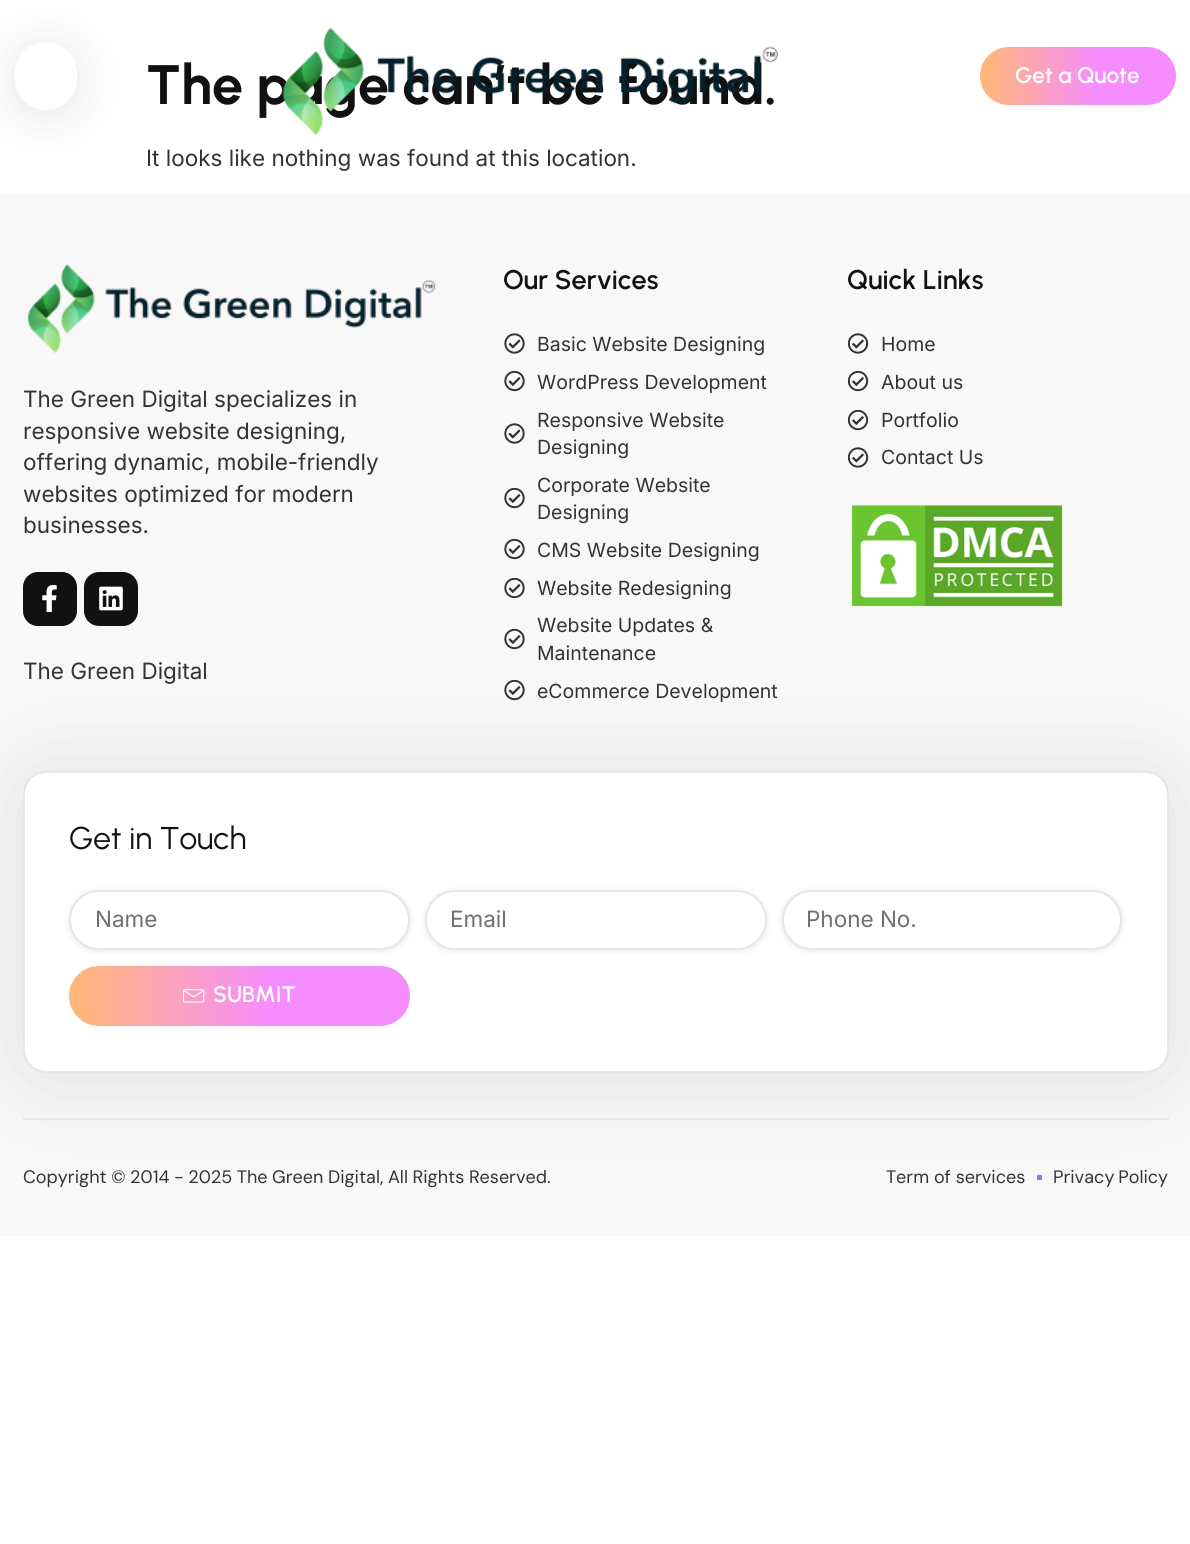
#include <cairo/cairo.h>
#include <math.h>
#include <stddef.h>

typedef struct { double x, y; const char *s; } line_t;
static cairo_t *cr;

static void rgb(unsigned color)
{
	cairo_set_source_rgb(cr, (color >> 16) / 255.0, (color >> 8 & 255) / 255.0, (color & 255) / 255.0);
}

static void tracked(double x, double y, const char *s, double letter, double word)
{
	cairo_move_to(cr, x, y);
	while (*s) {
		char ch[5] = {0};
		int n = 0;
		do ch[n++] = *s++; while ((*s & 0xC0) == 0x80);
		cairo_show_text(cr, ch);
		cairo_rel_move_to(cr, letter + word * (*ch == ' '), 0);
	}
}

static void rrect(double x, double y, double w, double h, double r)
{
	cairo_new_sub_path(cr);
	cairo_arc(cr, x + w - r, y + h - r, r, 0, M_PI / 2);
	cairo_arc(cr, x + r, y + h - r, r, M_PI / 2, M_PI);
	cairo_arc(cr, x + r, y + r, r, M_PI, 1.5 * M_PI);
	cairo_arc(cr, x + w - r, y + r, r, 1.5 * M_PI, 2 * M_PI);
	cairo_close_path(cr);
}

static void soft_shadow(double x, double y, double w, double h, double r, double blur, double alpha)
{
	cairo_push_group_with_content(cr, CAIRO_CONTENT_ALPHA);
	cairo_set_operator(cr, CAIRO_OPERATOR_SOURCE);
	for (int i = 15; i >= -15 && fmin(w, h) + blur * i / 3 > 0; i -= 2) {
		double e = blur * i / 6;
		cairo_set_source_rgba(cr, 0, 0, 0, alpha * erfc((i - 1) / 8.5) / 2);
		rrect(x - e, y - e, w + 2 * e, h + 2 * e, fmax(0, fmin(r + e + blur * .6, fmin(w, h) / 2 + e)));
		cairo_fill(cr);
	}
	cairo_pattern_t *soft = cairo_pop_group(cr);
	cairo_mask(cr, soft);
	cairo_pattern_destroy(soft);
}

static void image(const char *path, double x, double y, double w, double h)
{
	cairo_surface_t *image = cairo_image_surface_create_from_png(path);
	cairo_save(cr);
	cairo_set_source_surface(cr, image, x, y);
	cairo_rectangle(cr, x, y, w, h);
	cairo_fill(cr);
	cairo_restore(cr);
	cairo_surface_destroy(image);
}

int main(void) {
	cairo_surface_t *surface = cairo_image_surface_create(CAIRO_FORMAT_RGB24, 1190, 1544);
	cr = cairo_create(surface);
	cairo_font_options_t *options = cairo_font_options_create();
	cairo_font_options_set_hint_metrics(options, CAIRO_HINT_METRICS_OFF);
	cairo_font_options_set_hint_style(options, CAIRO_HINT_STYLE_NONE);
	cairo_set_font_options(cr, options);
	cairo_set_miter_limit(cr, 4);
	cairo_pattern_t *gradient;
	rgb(0xffffff);
	cairo_paint(cr);
	rgb(0x000000);
	soft_shadow(15, 47, 62, 67, 31, 22.5, 0.1);
	rgb(0xffffff);
	rrect(15, 42, 62, 68, 31);
	cairo_fill(cr);
	gradient = cairo_pattern_create_linear(980, 76, 1176, 76);
	cairo_pattern_add_color_stop_rgba(gradient, 0, 1, 0.718, 0.455, 1);
	cairo_pattern_add_color_stop_rgba(gradient, 0.6, 0.965, 0.553, 1, 1);
	cairo_set_source(cr, gradient);
	cairo_pattern_destroy(gradient);
	rrect(980, 47, 196, 58, 29);
	cairo_fill(cr);
	rgb(0xf8f8f8);
	cairo_rectangle(cr, 0, 195, 1190, 1041);
	cairo_fill(cr);
	image("img/2.png", 27, 263, 409, 90);
	rgb(0x111111);
	rrect(23, 572, 54, 54, 15);
	cairo_fill(cr);
	image("img/3.png", 42, 585, 15, 27);
	rrect(84, 572, 54, 54, 15);
	cairo_fill(cr);
	image("img/4.png", 99, 586, 24, 25);
	image("img/5.png", 504, 333, 21, 21);
	image("img/6.png", 504, 371, 21, 21);
	image("img/5.png", 504, 423, 21, 21);
	image("img/6.png", 504, 488, 21, 21);
	image("img/6.png", 504, 539, 21, 21);
	image("img/6.png", 504, 578, 21, 21);
	image("img/6.png", 504, 629, 21, 21);
	image("img/6.png", 504, 680, 21, 21);
	image("img/7.png", 848, 333, 21, 21);
	image("img/8.png", 848, 371, 21, 21);
	image("img/8.png", 848, 410, 21, 21);
	image("img/7.png", 848, 447, 21, 21);
	image("img/9.png", 851, 505, 212, 102);
	rgb(0x000000);
	soft_shadow(23, 776, 1146, 301, 23, 45, 0.1);
	rgb(0xffffff);
	rrect(24, 772, 1144, 300, 22);
	cairo_fill_preserve(cr);
	rgb(0xe6e6e6);
	cairo_stroke(cr);
	rrect(24, 772, 1144, 300, 22);
	cairo_set_source_rgba(cr, 0.902, 0.902, 0.902, 0.5);
	cairo_stroke(cr);
	rgb(0x000000);
	soft_shadow(69, 891, 341, 60, 30, 3, 0.1);
	rgb(0xffffff);
	rrect(70, 891, 339, 58, 29);
	cairo_fill_preserve(cr);
	rgb(0xe6e6e6);
	cairo_stroke(cr);
	rgb(0x000000);
	soft_shadow(425, 891, 342, 60, 30, 3, 0.1);
	rgb(0xffffff);
	rrect(426, 891, 340, 58, 29);
	cairo_fill_preserve(cr);
	rgb(0xe6e6e6);
	cairo_stroke(cr);
	rgb(0x000000);
	soft_shadow(782, 891, 340, 60, 30, 3, 0.1);
	rgb(0xffffff);
	rrect(783, 891, 338, 58, 29);
	cairo_fill_preserve(cr);
	rgb(0xe6e6e6);
	cairo_stroke(cr);
	gradient = cairo_pattern_create_linear(69, 996, 410, 996);
	cairo_pattern_add_color_stop_rgba(gradient, 0, 1, 0.718, 0.455, 1);
	cairo_pattern_add_color_stop_rgba(gradient, 0.6, 0.965, 0.553, 1, 1);
	cairo_set_source(cr, gradient);
	cairo_pattern_destroy(gradient);
	rrect(69, 966, 341, 60, 30);
	cairo_fill(cr);
	image("img/10.png", 183, 989, 22, 14);
	rgb(0xe6e6e6);
	cairo_rectangle(cr, 23, 1118, 1146, 2);
	cairo_fill(cr);
	rgb(0x7087ff);
	cairo_rectangle(cr, 1037, 1175, 5, 5);
	cairo_fill(cr);
	cairo_select_font_face(cr, "Urbanist", CAIRO_FONT_SLANT_NORMAL, CAIRO_FONT_WEIGHT_BOLD);
	cairo_set_font_size(cr, 55.5);
	rgb(0x111111);
	cairo_move_to(cr, 146, 104);
	cairo_show_text(cr, "The page can’t be found.");
	cairo_select_font_face(cr, "Inter", CAIRO_FONT_SLANT_NORMAL, CAIRO_FONT_WEIGHT_NORMAL);
	cairo_set_font_size(cr, 22.5);
	rgb(0x333335);
	cairo_move_to(cr, 146, 166);
	cairo_show_text(cr, "It looks like nothing was found at this location.");
	image("img/1.png", 282, 27, 496, 109);
	cairo_select_font_face(cr, "Urbanist SemiBold", CAIRO_FONT_SLANT_NORMAL, CAIRO_FONT_WEIGHT_NORMAL);
	rgb(0xffffff);
	cairo_move_to(cr, 1015, 83);
	cairo_show_text(cr, "Get a Quote");
	cairo_select_font_face(cr, "Inter", CAIRO_FONT_SLANT_NORMAL, CAIRO_FONT_WEIGHT_NORMAL);
	rgb(0x333335);
	{
		static const line_t items[] = {
			{23, 407, "The Green Digital specializes in"},
			{23, 439, "responsive website designing,"},
			{23, 470, "offering dynamic, mobile-friendly"},
			{23, 502, "websites optimized for modern"},
			{23, 533, "businesses."},
			{23, 679, "The Green Digital"},
		};
		for (size_t i = 0; i < sizeof items / sizeof *items; i++) {
			cairo_move_to(cr, items[i].x, items[i].y);
			cairo_show_text(cr, items[i].s);
		}
	}
	cairo_select_font_face(cr, "Urbanist SemiBold", CAIRO_FONT_SLANT_NORMAL, CAIRO_FONT_WEIGHT_NORMAL);
	cairo_set_font_size(cr, 27);
	rgb(0x111111);
	cairo_move_to(cr, 503, 289);
	cairo_show_text(cr, "Our Services");
	cairo_select_font_face(cr, "Inter", CAIRO_FONT_SLANT_NORMAL, CAIRO_FONT_WEIGHT_NORMAL);
	cairo_set_font_size(cr, 19.5);
	rgb(0x333335);
	{
		static const line_t items[] = {
			{537, 351, "Basic Website Designing"},
			{537, 389, "WordPress Development"},
			{537, 427, "Responsive Website"},
			{537, 454, "Designing"},
			{537, 492, "Corporate Website"},
			{537, 519, "Designing"},
			{537, 557, "CMS Website Designing"},
			{537, 595, "Website Redesigning"},
			{537, 632, "Website Updates &"},
			{537, 660, "Maintenance"},
			{537, 698, "eCommerce Development"},
		};
		for (size_t i = 0; i < sizeof items / sizeof *items; i++) {
			cairo_move_to(cr, items[i].x, items[i].y);
			cairo_show_text(cr, items[i].s);
		}
	}
	cairo_select_font_face(cr, "Urbanist SemiBold", CAIRO_FONT_SLANT_NORMAL, CAIRO_FONT_WEIGHT_NORMAL);
	cairo_set_font_size(cr, 27);
	rgb(0x111111);
	cairo_move_to(cr, 847, 289);
	cairo_show_text(cr, "Quick Links");
	cairo_select_font_face(cr, "Inter", CAIRO_FONT_SLANT_NORMAL, CAIRO_FONT_WEIGHT_NORMAL);
	cairo_set_font_size(cr, 19.5);
	rgb(0x333335);
	{
		static const line_t items[] = {
			{881, 351, "Home"},
			{881, 389, "About us"},
			{881, 427, "Portfolio"},
			{881, 464, "Contact Us"},
		};
		for (size_t i = 0; i < sizeof items / sizeof *items; i++) {
			cairo_move_to(cr, items[i].x, items[i].y);
			cairo_show_text(cr, items[i].s);
		}
	}
	cairo_select_font_face(cr, "Urbanist", CAIRO_FONT_SLANT_NORMAL, CAIRO_FONT_WEIGHT_NORMAL);
	cairo_set_font_size(cr, 31.5);
	rgb(0x111111);
	cairo_move_to(cr, 69, 849);
	cairo_show_text(cr, "Get in Touch");
	cairo_select_font_face(cr, "Inter", CAIRO_FONT_SLANT_NORMAL, CAIRO_FONT_WEIGHT_NORMAL);
	cairo_set_font_size(cr, 22.5);
	rgb(0x707070);
	{
		static const line_t items[] = {
			{95, 927, "Name"},
			{450, 927, "Email"},
			{806, 927, "Phone No."},
		};
		for (size_t i = 0; i < sizeof items / sizeof *items; i++) {
			cairo_move_to(cr, items[i].x, items[i].y);
			cairo_show_text(cr, items[i].s);
		}
	}
	cairo_select_font_face(cr, "Urbanist SemiBold", CAIRO_FONT_SLANT_NORMAL, CAIRO_FONT_WEIGHT_NORMAL);
	rgb(0xffffff);
	cairo_move_to(cr, 213, 1002);
	cairo_show_text(cr, "SUBMIT");
	cairo_select_font_face(cr, "DM Sans", CAIRO_FONT_SLANT_NORMAL, CAIRO_FONT_WEIGHT_NORMAL);
	cairo_set_font_size(cr, 18);
	rgb(0x333335);
	tracked(23, 1183, "Copyright © 2014 - 2025 The Green Digital, All Rights Reserved.", 0, -0.25);
	cairo_move_to(cr, 886, 1183);
	cairo_show_text(cr, "Term of services");
	tracked(1053, 1183, "Privacy Policy", 0, -1);
	cairo_surface_write_to_png(surface, "page.png");
	cairo_font_options_destroy(options);
	cairo_destroy(cr);
	cairo_surface_destroy(surface);
	return 0;
}
